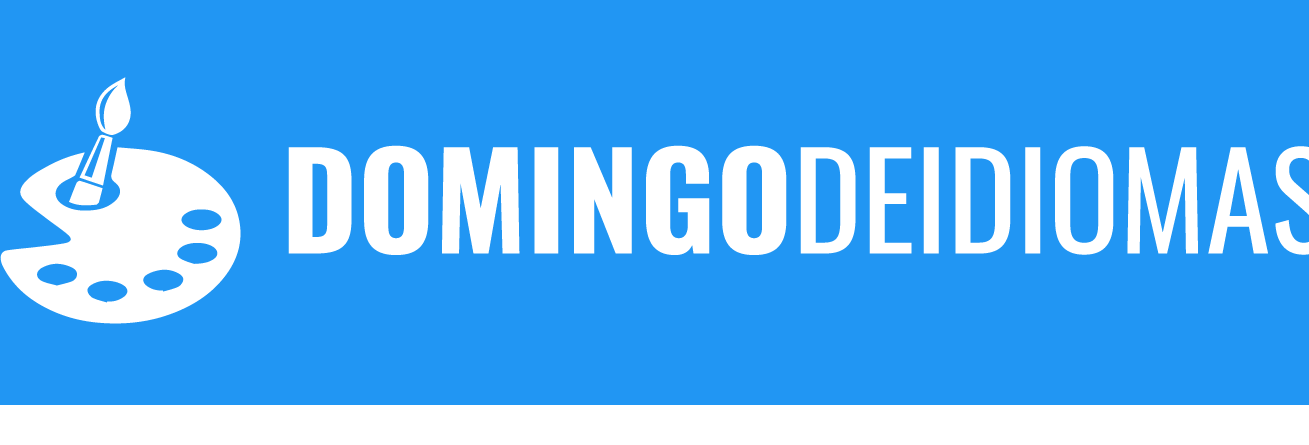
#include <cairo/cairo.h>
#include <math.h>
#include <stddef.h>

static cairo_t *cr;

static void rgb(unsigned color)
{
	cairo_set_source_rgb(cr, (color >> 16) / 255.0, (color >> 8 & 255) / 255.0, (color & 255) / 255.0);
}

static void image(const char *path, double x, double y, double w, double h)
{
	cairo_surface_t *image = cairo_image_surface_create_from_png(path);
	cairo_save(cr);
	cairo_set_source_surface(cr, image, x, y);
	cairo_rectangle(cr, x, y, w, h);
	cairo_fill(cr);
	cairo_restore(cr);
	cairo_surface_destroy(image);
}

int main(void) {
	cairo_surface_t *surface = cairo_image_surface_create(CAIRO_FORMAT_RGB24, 1309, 445);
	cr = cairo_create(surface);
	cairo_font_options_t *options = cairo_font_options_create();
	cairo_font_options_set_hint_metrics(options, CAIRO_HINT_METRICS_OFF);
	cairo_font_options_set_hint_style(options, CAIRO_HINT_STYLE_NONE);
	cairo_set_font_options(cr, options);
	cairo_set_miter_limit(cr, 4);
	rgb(0xffffff);
	cairo_paint(cr);
	rgb(0x2196f3);
	cairo_rectangle(cr, 0, 0, 1309, 405);
	cairo_fill(cr);
	image("img/1.png", 0, 77, 1309, 247);
	cairo_surface_write_to_png(surface, "page.png");
	cairo_font_options_destroy(options);
	cairo_destroy(cr);
	cairo_surface_destroy(surface);
	return 0;
}
